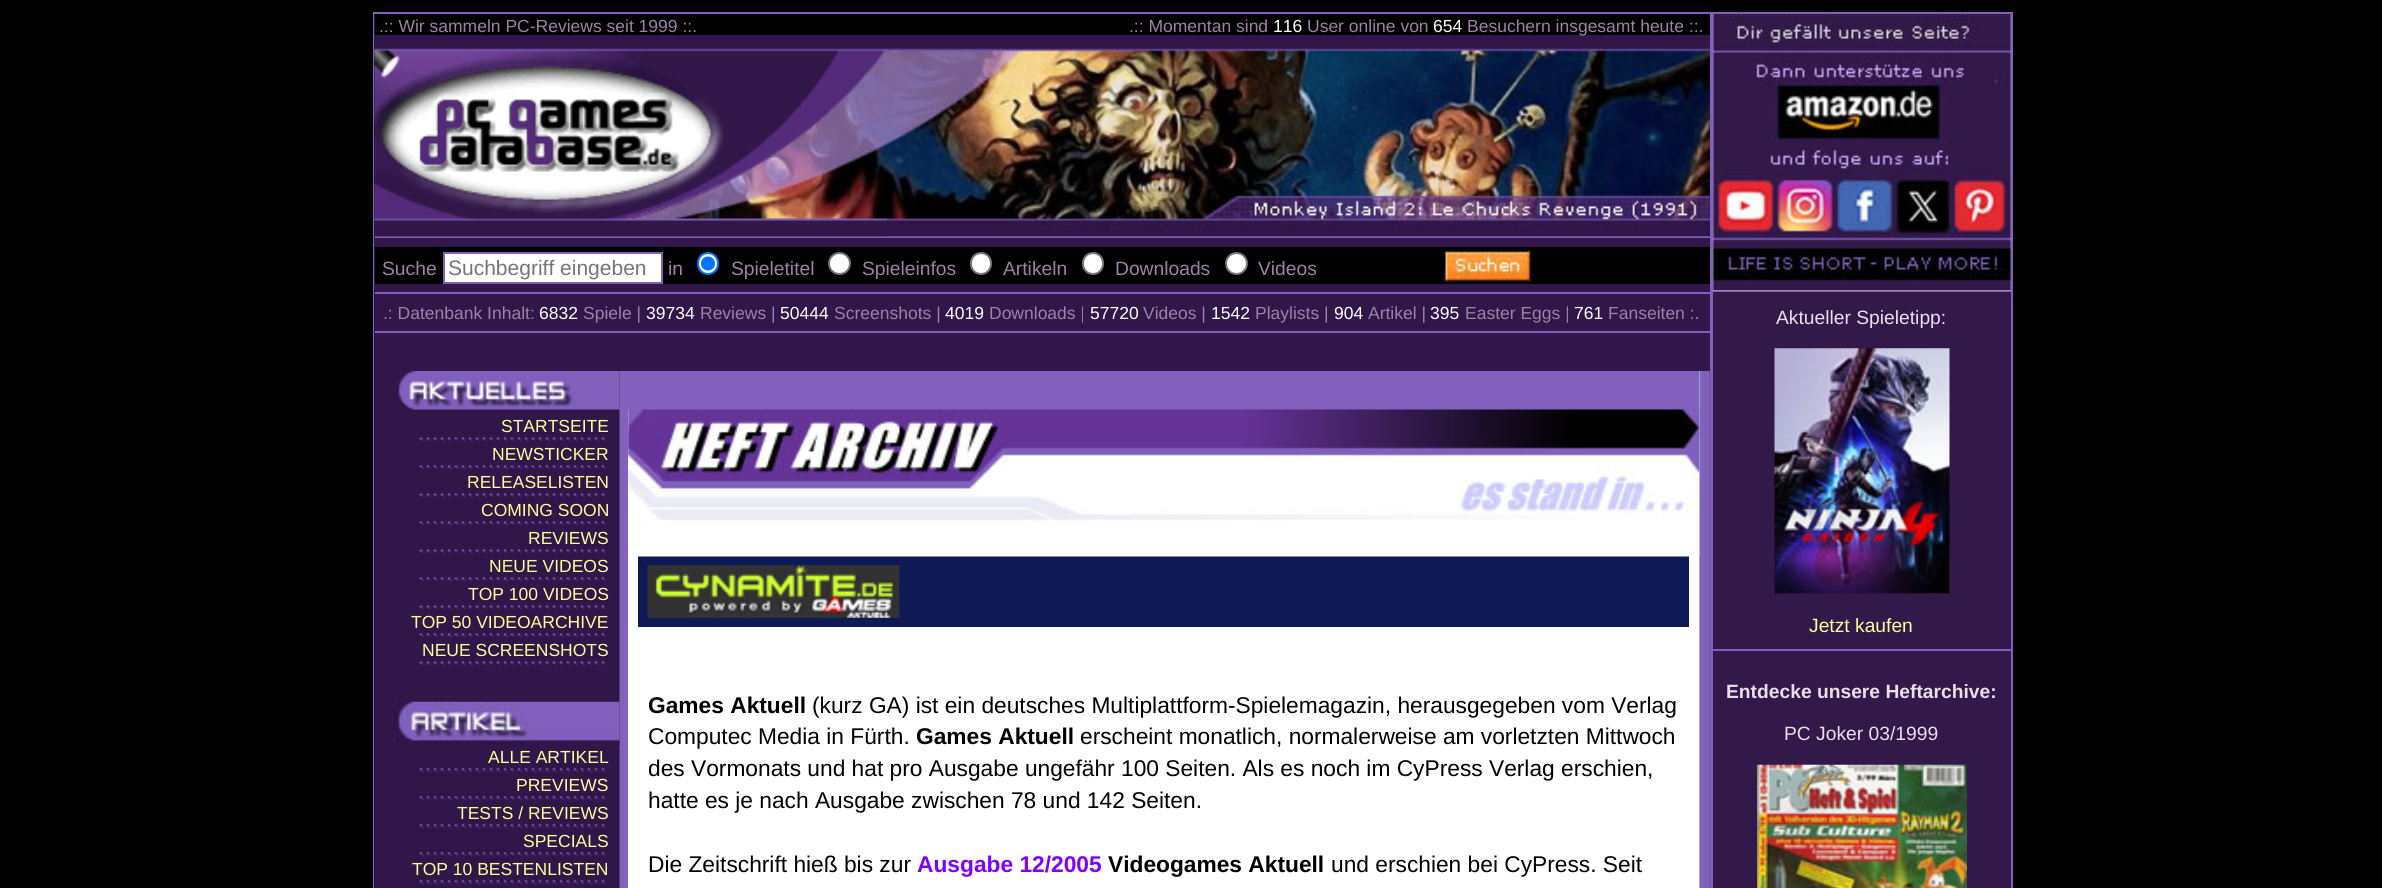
#include <cairo/cairo.h>
#include <math.h>
#include <stddef.h>

typedef struct { double x, y; const char *s; } line_t;
typedef struct { double x, y, w, h; unsigned color; } box_t;
static cairo_t *cr;

static void rgb(unsigned color)
{
	cairo_set_source_rgb(cr, (color >> 16) / 255.0, (color >> 8 & 255) / 255.0, (color & 255) / 255.0);
}

static void rrect(double x, double y, double w, double h, double r)
{
	cairo_new_sub_path(cr);
	cairo_arc(cr, x + w - r, y + h - r, r, 0, M_PI / 2);
	cairo_arc(cr, x + r, y + h - r, r, M_PI / 2, M_PI);
	cairo_arc(cr, x + r, y + r, r, M_PI, 1.5 * M_PI);
	cairo_arc(cr, x + w - r, y + r, r, 1.5 * M_PI, 2 * M_PI);
	cairo_close_path(cr);
}

static void image(const char *path, double x, double y, double w, double h)
{
	cairo_surface_t *image = cairo_image_surface_create_from_png(path);
	cairo_save(cr);
	cairo_set_source_surface(cr, image, x, y);
	cairo_rectangle(cr, x, y, w, h);
	cairo_fill(cr);
	cairo_restore(cr);
	cairo_surface_destroy(image);
}

int main(void) {
	cairo_surface_t *surface = cairo_image_surface_create(CAIRO_FORMAT_RGB24, 2382, 888);
	cr = cairo_create(surface);
	cairo_font_options_t *options = cairo_font_options_create();
	cairo_font_options_set_hint_metrics(options, CAIRO_HINT_METRICS_OFF);
	cairo_font_options_set_hint_style(options, CAIRO_HINT_STYLE_NONE);
	cairo_set_font_options(cr, options);
	cairo_set_miter_limit(cr, 4);
	rgb(0x000000);
	cairo_paint(cr);
	{
		static const box_t items[] = {
			{373, 12, 1640, 876, 0x825fbd},
			{374, 14, 1336, 874, 0x311649},
			{375, 14, 1335, 21, 0x000000},
			{375, 236, 1335, 2, 0x825fbd},
		};
		for (size_t i = 0; i < sizeof items / sizeof *items; i++) {
			rgb(items[i].color);
			cairo_rectangle(cr, items[i].x, items[i].y, items[i].w, items[i].h);
			cairo_fill(cr);
		}
	}
	image("img/1.png", 374, 48, 1336, 189);
	image("img/2.png", 374, 48, 514, 189);
	rgb(0x000000);
	cairo_rectangle(cr, 375, 247, 1335, 37);
	cairo_fill(cr);
	rgb(0xffffff);
	cairo_rectangle(cr, 444, 253, 218, 30);
	cairo_fill_preserve(cr);
	rgb(0x825fbd);
	cairo_stroke(cr);
	rgb(0xffffff);
	rrect(698, 253, 20, 21, 10);
	cairo_fill_preserve(cr);
	rgb(0x0075ff);
	cairo_stroke(cr);
	cairo_arc(cr, 708, 263.5, 7, 0, 2 * M_PI);
	cairo_fill(cr);
	rgb(0xffffff);
	cairo_arc(cr, 839.5, 263.5, 10.5, 0, 2 * M_PI);
	cairo_fill_preserve(cr);
	rgb(0x767676);
	cairo_stroke(cr);
	rgb(0xffffff);
	rrect(971, 253, 20, 21, 10);
	cairo_fill_preserve(cr);
	rgb(0x767676);
	cairo_stroke(cr);
	rgb(0xffffff);
	rrect(1083, 253, 20, 21, 10);
	cairo_fill_preserve(cr);
	rgb(0x767676);
	cairo_stroke(cr);
	rgb(0xffffff);
	cairo_arc(cr, 1236.5, 263.5, 10.5, 0, 2 * M_PI);
	cairo_fill_preserve(cr);
	rgb(0x767676);
	cairo_stroke(cr);
	image("img/3.png", 1443, 250, 89, 32);
	rgb(0x825fbd);
	cairo_rectangle(cr, 375, 292, 1335, 2);
	cairo_fill(cr);
	cairo_rectangle(cr, 375, 331, 1335, 2);
	cairo_fill(cr);
	image("img/8.png", 619, 371, 1091, 517);
	image("img/4.png", 398, 371, 222, 39);
	image("img/5.png", 419, 437, 187, 5);
	image("img/5.png", 419, 465, 187, 5);
	image("img/5.png", 419, 493, 187, 5);
	image("img/5.png", 419, 521, 187, 5);
	image("img/5.png", 419, 549, 187, 5);
	image("img/5.png", 419, 577, 187, 5);
	image("img/5.png", 419, 605, 187, 5);
	image("img/5.png", 419, 633, 187, 5);
	image("img/5.png", 419, 661, 187, 5);
	image("img/6.png", 389, 701, 231, 45);
	image("img/7.png", 419, 767, 187, 6);
	image("img/7.png", 419, 795, 187, 6);
	image("img/7.png", 419, 823, 187, 6);
	image("img/7.png", 419, 851, 187, 6);
	image("img/7.png", 419, 879, 187, 6);
	{
		static const box_t items[] = {
			{628, 371, 1071, 39, 0x825fbd},
			{628, 410, 1071, 478, 0xffffff},
			{638, 556, 1051, 71, 0x0f1956},
		};
		for (size_t i = 0; i < sizeof items / sizeof *items; i++) {
			rgb(items[i].color);
			cairo_rectangle(cr, items[i].x, items[i].y, items[i].w, items[i].h);
			cairo_fill(cr);
		}
	}
	image("img/9.png", 628, 409, 1072, 148);
	image("img/10.png", 647, 565, 253, 53);
	rgb(0xffffff);
	cairo_rectangle(cr, 1713, 14, 298, 277);
	cairo_fill(cr);
	image("img/11.png", 1713, 14, 298, 277);
	rgb(0x33184a);
	cairo_rectangle(cr, 1713, 292, 298, 357);
	cairo_fill(cr);
	image("img/12.png", 1774, 348, 176, 246);
	cairo_rectangle(cr, 1713, 651, 298, 237);
	cairo_fill(cr);
	image("img/13.png", 1757, 764, 210, 124);
	cairo_select_font_face(cr, "Liberation Sans", CAIRO_FONT_SLANT_NORMAL, CAIRO_FONT_WEIGHT_NORMAL);
	cairo_set_font_size(cr, 17.5);
	rgb(0x9d82a6);
	cairo_move_to(cr, 379, 32);
	cairo_show_text(cr, ".:: Wir sammeln PC-Reviews seit 1999 ::.");
	cairo_move_to(cr, 1129, 32);
	cairo_show_text(cr, ".:: Momentan sind");
	rgb(0xffffff);
	cairo_move_to(cr, 1273, 32);
	cairo_show_text(cr, "116");
	rgb(0x9d82a6);
	cairo_move_to(cr, 1307, 32);
	cairo_show_text(cr, "User online von");
	rgb(0xffffff);
	cairo_move_to(cr, 1433, 32);
	cairo_show_text(cr, "654");
	rgb(0x9d82a6);
	cairo_move_to(cr, 1467, 32);
	cairo_show_text(cr, "Besuchern insgesamt heute ::.");
	cairo_set_font_size(cr, 19.25);
	cairo_move_to(cr, 382, 275);
	cairo_show_text(cr, "Suche");
	cairo_set_font_size(cr, 21);
	rgb(0x757575);
	cairo_move_to(cr, 448, 275);
	cairo_show_text(cr, "Suchbegriff eingeben");
	cairo_set_font_size(cr, 19.25);
	rgb(0x9d82a6);
	{
		static const line_t items[] = {
			{668, 275, "in"},
			{731, 275, "Spieletitel"},
			{862, 275, "Spieleinfos"},
			{1003, 275, "Artikeln"},
			{1115, 275, "Downloads"},
			{1258, 275, "Videos"},
		};
		for (size_t i = 0; i < sizeof items / sizeof *items; i++) {
			cairo_move_to(cr, items[i].x, items[i].y);
			cairo_show_text(cr, items[i].s);
		}
	}
	cairo_set_font_size(cr, 17.5);
	cairo_move_to(cr, 383, 319);
	cairo_show_text(cr, ".: Datenbank Inhalt:");
	rgb(0xffffff);
	cairo_move_to(cr, 539, 319);
	cairo_show_text(cr, "6832");
	rgb(0x9d82a6);
	cairo_move_to(cr, 583, 319);
	cairo_show_text(cr, "Spiele |");
	rgb(0xffffff);
	cairo_move_to(cr, 646, 319);
	cairo_show_text(cr, "39734");
	rgb(0x9d82a6);
	cairo_move_to(cr, 700, 319);
	cairo_show_text(cr, "Reviews |");
	rgb(0xffffff);
	cairo_move_to(cr, 780, 319);
	cairo_show_text(cr, "50444");
	rgb(0x9d82a6);
	cairo_move_to(cr, 834, 319);
	cairo_show_text(cr, "Screenshots |");
	rgb(0xffffff);
	cairo_move_to(cr, 945, 319);
	cairo_show_text(cr, "4019");
	rgb(0x9d82a6);
	cairo_move_to(cr, 989, 319);
	cairo_show_text(cr, "Downloads |");
	rgb(0xffffff);
	cairo_move_to(cr, 1090, 319);
	cairo_show_text(cr, "57720");
	rgb(0x9d82a6);
	cairo_move_to(cr, 1143, 319);
	cairo_show_text(cr, "Videos |");
	rgb(0xffffff);
	cairo_move_to(cr, 1211, 319);
	cairo_show_text(cr, "1542");
	rgb(0x9d82a6);
	cairo_move_to(cr, 1255, 319);
	cairo_show_text(cr, "Playlists |");
	rgb(0xffffff);
	cairo_move_to(cr, 1334, 319);
	cairo_show_text(cr, "904");
	rgb(0x9d82a6);
	cairo_move_to(cr, 1368, 319);
	cairo_show_text(cr, "Artikel |");
	rgb(0xffffff);
	cairo_move_to(cr, 1430, 319);
	cairo_show_text(cr, "395");
	rgb(0x9d82a6);
	cairo_move_to(cr, 1465, 319);
	cairo_show_text(cr, "Easter Eggs |");
	rgb(0xffffff);
	cairo_move_to(cr, 1574, 319);
	cairo_show_text(cr, "761");
	rgb(0x9d82a6);
	cairo_move_to(cr, 1608, 319);
	cairo_show_text(cr, "Fanseiten :.");
	rgb(0xffff99);
	{
		static const line_t items[] = {
			{501, 432, "STARTSEITE"},
			{492, 460, "NEWSTICKER"},
			{467, 488, "RELEASELISTEN"},
			{481, 516, "COMING SOON"},
			{528, 544, "REVIEWS"},
			{489, 572, "NEUE VIDEOS"},
			{468, 600, "TOP 100 VIDEOS"},
			{411, 628, "TOP 50 VIDEOARCHIVE"},
			{422, 656, "NEUE SCREENSHOTS"},
			{488, 763, "ALLE ARTIKEL"},
			{516, 791, "PREVIEWS"},
			{457, 819, "TESTS / REVIEWS"},
			{523, 847, "SPECIALS"},
			{412, 875, "TOP 10 BESTENLISTEN"},
		};
		for (size_t i = 0; i < sizeof items / sizeof *items; i++) {
			cairo_move_to(cr, items[i].x, items[i].y);
			cairo_show_text(cr, items[i].s);
		}
	}
	cairo_select_font_face(cr, "Liberation Sans", CAIRO_FONT_SLANT_NORMAL, CAIRO_FONT_WEIGHT_BOLD);
	cairo_set_font_size(cr, 22.75);
	rgb(0x000000);
	cairo_move_to(cr, 648, 713);
	cairo_show_text(cr, "Games Aktuell");
	cairo_select_font_face(cr, "Liberation Sans", CAIRO_FONT_SLANT_NORMAL, CAIRO_FONT_WEIGHT_NORMAL);
	cairo_move_to(cr, 812, 713);
	cairo_show_text(cr, "(kurz GA) ist ein deutsches Multiplattform-Spielemagazin, herausgegeben vom Verlag");
	cairo_move_to(cr, 648, 744);
	cairo_show_text(cr, "Computec Media in Fürth.");
	cairo_select_font_face(cr, "Liberation Sans", CAIRO_FONT_SLANT_NORMAL, CAIRO_FONT_WEIGHT_BOLD);
	cairo_move_to(cr, 916, 744);
	cairo_show_text(cr, "Games Aktuell");
	cairo_select_font_face(cr, "Liberation Sans", CAIRO_FONT_SLANT_NORMAL, CAIRO_FONT_WEIGHT_NORMAL);
	{
		static const line_t items[] = {
			{1080, 744, "erscheint monatlich, normalerweise am vorletzten Mittwoch"},
			{648, 776, "des Vormonats und hat pro Ausgabe ungefähr 100 Seiten. Als es noch im CyPress Verlag erschien,"},
			{648, 808, "hatte es je nach Ausgabe zwischen 78 und 142 Seiten."},
			{648, 872, "Die Zeitschrift hieß bis zur"},
		};
		for (size_t i = 0; i < sizeof items / sizeof *items; i++) {
			cairo_move_to(cr, items[i].x, items[i].y);
			cairo_show_text(cr, items[i].s);
		}
	}
	cairo_select_font_face(cr, "Liberation Sans", CAIRO_FONT_SLANT_NORMAL, CAIRO_FONT_WEIGHT_BOLD);
	rgb(0x8000ff);
	cairo_move_to(cr, 917, 872);
	cairo_show_text(cr, "Ausgabe 12/2005");
	rgb(0x000000);
	cairo_move_to(cr, 1108, 872);
	cairo_show_text(cr, "Videogames Aktuell");
	cairo_select_font_face(cr, "Liberation Sans", CAIRO_FONT_SLANT_NORMAL, CAIRO_FONT_WEIGHT_NORMAL);
	cairo_move_to(cr, 1331, 872);
	cairo_show_text(cr, "und erschien bei CyPress. Seit");
	cairo_set_font_size(cr, 19.25);
	rgb(0xebdfec);
	cairo_move_to(cr, 1776, 324);
	cairo_show_text(cr, "Aktueller Spieletipp:");
	rgb(0xffff99);
	cairo_move_to(cr, 1809, 632);
	cairo_show_text(cr, "Jetzt kaufen");
	cairo_select_font_face(cr, "Liberation Sans", CAIRO_FONT_SLANT_NORMAL, CAIRO_FONT_WEIGHT_BOLD);
	rgb(0xebdfec);
	cairo_move_to(cr, 1726, 698);
	cairo_show_text(cr, "Entdecke unsere Heftarchive:");
	cairo_select_font_face(cr, "Liberation Sans", CAIRO_FONT_SLANT_NORMAL, CAIRO_FONT_WEIGHT_NORMAL);
	cairo_move_to(cr, 1784, 740);
	cairo_show_text(cr, "PC Joker 03/1999");
	cairo_surface_write_to_png(surface, "page.png");
	cairo_font_options_destroy(options);
	cairo_destroy(cr);
	cairo_surface_destroy(surface);
	return 0;
}
